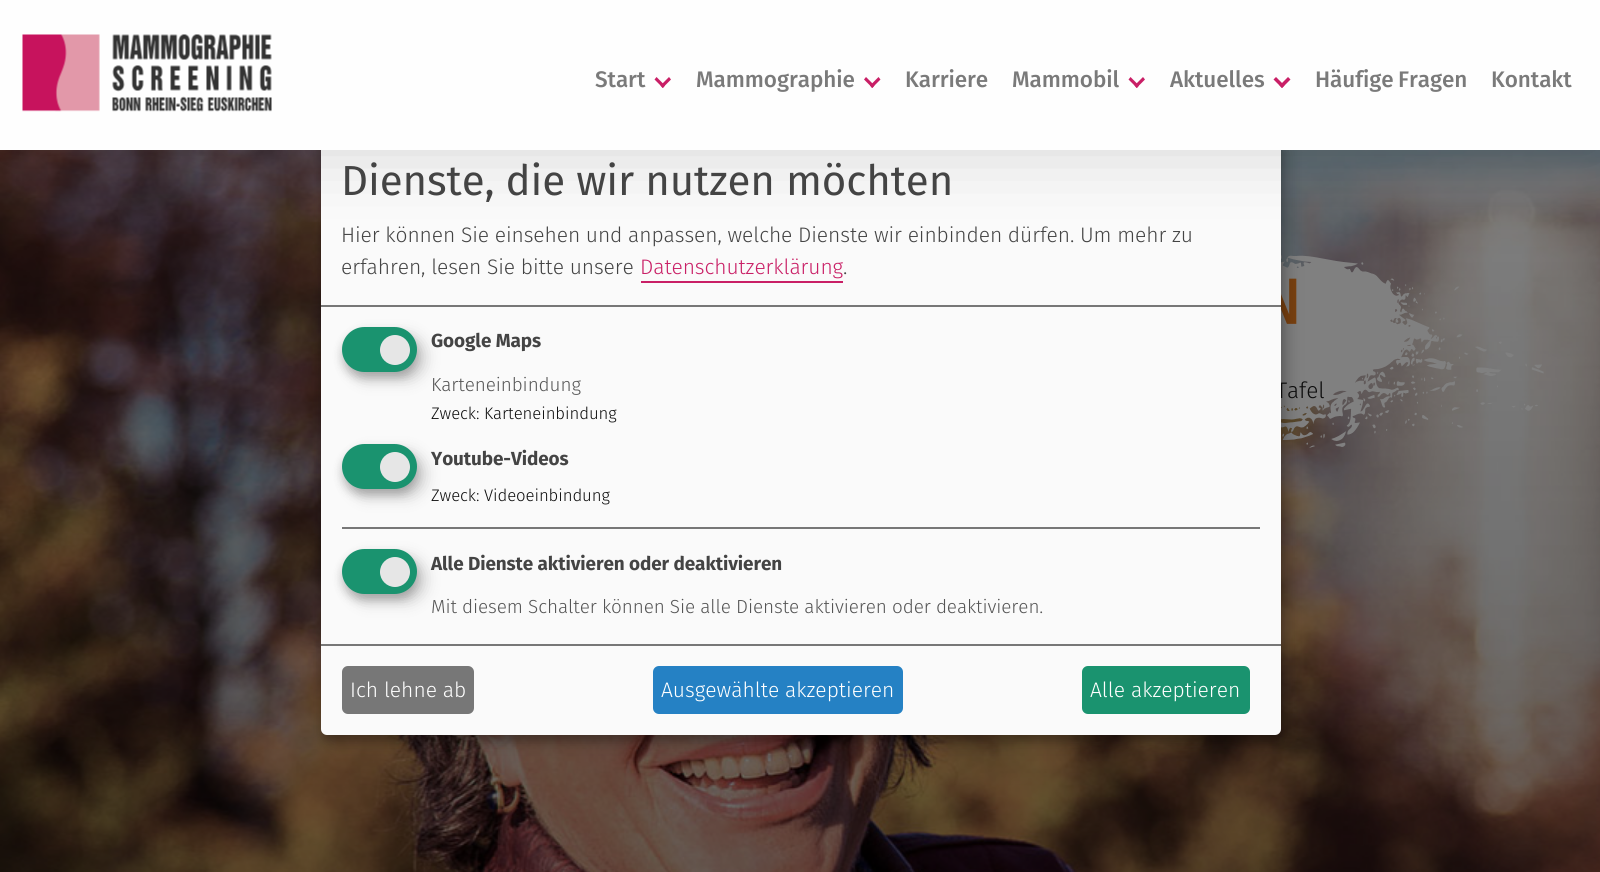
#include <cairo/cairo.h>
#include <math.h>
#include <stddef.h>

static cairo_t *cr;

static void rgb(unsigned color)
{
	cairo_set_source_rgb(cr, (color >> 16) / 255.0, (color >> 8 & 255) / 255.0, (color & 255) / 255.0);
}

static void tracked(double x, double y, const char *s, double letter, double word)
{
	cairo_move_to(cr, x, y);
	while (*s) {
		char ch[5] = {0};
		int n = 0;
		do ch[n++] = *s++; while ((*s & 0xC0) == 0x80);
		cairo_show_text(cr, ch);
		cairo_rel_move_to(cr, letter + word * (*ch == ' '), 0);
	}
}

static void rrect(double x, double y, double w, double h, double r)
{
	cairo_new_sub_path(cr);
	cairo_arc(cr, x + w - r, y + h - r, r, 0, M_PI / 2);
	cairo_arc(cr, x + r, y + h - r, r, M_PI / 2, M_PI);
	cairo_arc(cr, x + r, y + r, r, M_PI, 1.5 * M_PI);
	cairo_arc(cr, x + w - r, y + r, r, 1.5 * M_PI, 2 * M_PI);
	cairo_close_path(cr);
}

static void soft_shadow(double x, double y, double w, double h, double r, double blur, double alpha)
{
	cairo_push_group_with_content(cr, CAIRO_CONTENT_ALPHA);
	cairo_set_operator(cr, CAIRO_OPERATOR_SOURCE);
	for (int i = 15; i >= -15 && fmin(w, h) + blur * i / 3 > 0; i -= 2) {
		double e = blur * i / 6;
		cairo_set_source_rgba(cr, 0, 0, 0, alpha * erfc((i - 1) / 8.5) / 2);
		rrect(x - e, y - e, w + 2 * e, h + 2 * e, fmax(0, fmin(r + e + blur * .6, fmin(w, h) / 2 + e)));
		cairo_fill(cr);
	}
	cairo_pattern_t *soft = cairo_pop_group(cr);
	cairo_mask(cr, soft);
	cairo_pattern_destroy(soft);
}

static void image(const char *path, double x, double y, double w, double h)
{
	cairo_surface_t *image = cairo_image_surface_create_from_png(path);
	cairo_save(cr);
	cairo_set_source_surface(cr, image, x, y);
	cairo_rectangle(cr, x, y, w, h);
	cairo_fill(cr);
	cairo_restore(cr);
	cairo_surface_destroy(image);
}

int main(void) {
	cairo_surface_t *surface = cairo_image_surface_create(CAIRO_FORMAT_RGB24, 1600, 872);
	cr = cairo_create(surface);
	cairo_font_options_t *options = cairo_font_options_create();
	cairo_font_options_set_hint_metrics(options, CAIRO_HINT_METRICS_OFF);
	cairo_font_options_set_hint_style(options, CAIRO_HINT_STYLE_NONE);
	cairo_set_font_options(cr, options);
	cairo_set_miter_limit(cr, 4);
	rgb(0xffffff);
	cairo_paint(cr);
	image("img/2.png", 0, 150, 1600, 722);
	image("img/3.png", 1281, 255, 263, 193);
	image("img/4.png", 1281, 278, 16, 46);
	rgb(0x000000);
	soft_shadow(329, 146, 960, 597, 6, 7.5, 0.19);
	soft_shadow(321, 144, 960, 597, 6, 4.5, 0.2);
	cairo_select_font_face(cr, "Fira Sans Light", CAIRO_FONT_SLANT_NORMAL, CAIRO_FONT_WEIGHT_NORMAL);
	cairo_set_font_size(cr, 22.5);
	rgb(0x0c0c0c);
	tracked(1276, 398, "Tafel", -0.08, 0);
	rgb(0xfafafa);
	rrect(321, 138, 960, 597, 6);
	cairo_fill(cr);
	rgb(0x000000);
	soft_shadow(0, 0, 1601, 150, 0, 37.5, 0.15);
	rgb(0xfefefe);
	cairo_rectangle(cr, 0, 0, 1600, 150);
	cairo_fill(cr);
	image("img/1.png", 22, 34, 250, 78);
	cairo_select_font_face(cr, "Fira Sans Medium", CAIRO_FONT_SLANT_NORMAL, CAIRO_FONT_WEIGHT_NORMAL);
	rgb(0x7a7a7a);
	tracked(1491, 87, "Kontakt", -0.08, 0);
	tracked(1315, 87, "Häufige Fragen", -0.08, -1);
	rgb(0xc91f66);
	cairo_new_path(cr);
	cairo_move_to(cr, 1276, 77);
	cairo_line_to(cr, 1284.5, 85.5);
	cairo_line_to(cr, 1282, 88);
	cairo_line_to(cr, 1273.5, 79.5);
	cairo_close_path(cr);
	cairo_fill(cr);
	cairo_new_path(cr);
	cairo_move_to(cr, 1279.5, 85.5);
	cairo_line_to(cr, 1288, 77);
	cairo_line_to(cr, 1290.5, 79.5);
	cairo_line_to(cr, 1282, 88);
	cairo_close_path(cr);
	cairo_fill(cr);
	rgb(0x7a7a7a);
	tracked(1170, 87, "Aktuelles", -0.08, 0);
	rgb(0xc91f66);
	cairo_new_path(cr);
	cairo_move_to(cr, 1130.5, 77);
	cairo_line_to(cr, 1139, 85.5);
	cairo_line_to(cr, 1137, 88);
	cairo_line_to(cr, 1128.5, 79.5);
	cairo_close_path(cr);
	cairo_fill(cr);
	cairo_new_path(cr);
	cairo_move_to(cr, 1134.5, 85.5);
	cairo_line_to(cr, 1143, 77);
	cairo_line_to(cr, 1145, 79.5);
	cairo_line_to(cr, 1136.5, 88);
	cairo_close_path(cr);
	cairo_fill(cr);
	rgb(0x7a7a7a);
	tracked(1012, 87, "Mammobil", -0.08, 0);
	tracked(905, 87, "Karriere", -0.08, 0);
	rgb(0xc91f66);
	cairo_new_path(cr);
	cairo_move_to(cr, 866, 77);
	cairo_line_to(cr, 874.5, 85.5);
	cairo_line_to(cr, 872.5, 88);
	cairo_line_to(cr, 864, 79.5);
	cairo_close_path(cr);
	cairo_fill(cr);
	cairo_new_path(cr);
	cairo_move_to(cr, 870, 85.5);
	cairo_line_to(cr, 878.5, 77);
	cairo_line_to(cr, 880.5, 79.5);
	cairo_line_to(cr, 872, 88);
	cairo_close_path(cr);
	cairo_fill(cr);
	rgb(0x7a7a7a);
	tracked(696, 87, "Mammographie", -0.08, 0);
	rgb(0xc91f66);
	cairo_new_path(cr);
	cairo_move_to(cr, 656.5, 77);
	cairo_line_to(cr, 665, 85.5);
	cairo_line_to(cr, 663, 88);
	cairo_line_to(cr, 654.5, 79.5);
	cairo_close_path(cr);
	cairo_fill(cr);
	cairo_new_path(cr);
	cairo_move_to(cr, 660.5, 85.5);
	cairo_line_to(cr, 669, 77);
	cairo_line_to(cr, 671, 79.5);
	cairo_line_to(cr, 662.5, 88);
	cairo_close_path(cr);
	cairo_fill(cr);
	rgb(0x7a7a7a);
	tracked(595, 87, "Start", -0.08, 0);
	rgb(0x000000);
	soft_shadow(342, 555, 75, 45, 22.5, 4.5, 0.2);
	soft_shadow(350, 557, 75, 45, 22.5, 7.5, 0.19);
	rgb(0x1a936f);
	rrect(342, 549, 75, 45, 22.5);
	cairo_fill(cr);
	rgb(0xe6e6e6);
	cairo_arc(cr, 395, 572, 15, 0, 2 * M_PI);
	cairo_fill(cr);
	cairo_select_font_face(cr, "Fira Sans", CAIRO_FONT_SLANT_NORMAL, CAIRO_FONT_WEIGHT_BOLD);
	cairo_set_font_size(cr, 18.9);
	rgb(0x444444);
	tracked(431, 570, "Alle Dienste aktivieren oder deaktivieren", -0.08, 0);
	cairo_select_font_face(cr, "Fira Sans Light", CAIRO_FONT_SLANT_NORMAL, CAIRO_FONT_WEIGHT_NORMAL);
	rgb(0x555555);
	tracked(431, 613, "Mit diesem Schalter können Sie alle Dienste aktivieren oder deaktivieren.", -0.08, 0);
	rgb(0x777777);
	cairo_rectangle(cr, 342, 527, 918, 2);
	cairo_fill(cr);
	rgb(0x000000);
	soft_shadow(342, 450, 75, 45, 22.5, 4.5, 0.2);
	soft_shadow(350, 452, 75, 45, 22.5, 7.5, 0.19);
	rgb(0x1a936f);
	rrect(342, 444, 75, 45, 22.5);
	cairo_fill(cr);
	rgb(0xe6e6e6);
	cairo_arc(cr, 395, 467, 15, 0, 2 * M_PI);
	cairo_fill(cr);
	cairo_select_font_face(cr, "Fira Sans", CAIRO_FONT_SLANT_NORMAL, CAIRO_FONT_WEIGHT_BOLD);
	rgb(0x444444);
	tracked(431, 465, "Youtube-Videos", -0.08, 0);
	cairo_select_font_face(cr, "Fira Sans Light", CAIRO_FONT_SLANT_NORMAL, CAIRO_FONT_WEIGHT_NORMAL);
	cairo_set_font_size(cr, 16.75);
	rgb(0x0c0c0c);
	tracked(431, 501, "Zweck: Videoeinbindung", -0.08, 0);
	rgb(0x000000);
	soft_shadow(342, 333, 75, 45, 22.5, 4.5, 0.2);
	soft_shadow(350, 335, 75, 45, 22.5, 7.5, 0.19);
	rgb(0x1a936f);
	rrect(342, 327, 75, 45, 22.5);
	cairo_fill(cr);
	rgb(0xe6e6e6);
	cairo_arc(cr, 395, 350, 15, 0, 2 * M_PI);
	cairo_fill(cr);
	cairo_select_font_face(cr, "Fira Sans", CAIRO_FONT_SLANT_NORMAL, CAIRO_FONT_WEIGHT_BOLD);
	cairo_set_font_size(cr, 18.9);
	rgb(0x444444);
	tracked(431, 347, "Google Maps", -0.08, 0);
	cairo_select_font_face(cr, "Fira Sans Light", CAIRO_FONT_SLANT_NORMAL, CAIRO_FONT_WEIGHT_NORMAL);
	cairo_set_font_size(cr, 16.75);
	rgb(0x0c0c0c);
	tracked(431, 419, "Zweck: Karteneinbindung", -0.08, 0);
	cairo_set_font_size(cr, 18.9);
	rgb(0x555555);
	tracked(431, 391, "Karteneinbindung", -0.08, 0);
	rgb(0x1a936f);
	rrect(1082, 666, 168, 48, 6);
	cairo_fill(cr);
	cairo_set_font_size(cr, 21);
	rgb(0xffffff);
	cairo_move_to(cr, 1090, 697);
	cairo_show_text(cr, "Alle akzeptieren");
	rgb(0x2581c4);
	rrect(653, 666, 250, 48, 6);
	cairo_fill(cr);
	rgb(0xffffff);
	cairo_move_to(cr, 661, 697);
	cairo_show_text(cr, "Ausgewählte akzeptieren");
	rgb(0x777777);
	rrect(342, 666, 132, 48, 6);
	cairo_fill(cr);
	rgb(0xffffff);
	cairo_move_to(cr, 350, 697);
	cairo_show_text(cr, "Ich lehne ab");
	rgb(0x444444);
	tracked(843, 274, ".", -0.08, 0);
	rgb(0xc91f66);
	tracked(640, 274, "Datenschutzerklärung", -0.08, 0);
	cairo_rectangle(cr, 641, 281, 202, 2);
	cairo_fill(cr);
	rgb(0x444444);
	tracked(341, 274, "erfahren, lesen Sie bitte unsere", -0.08, 0);
	tracked(341, 242, "Hier können Sie einsehen und anpassen, welche Dienste wir einbinden dürfen. Um mehr zu", -0.08, 0);
	cairo_select_font_face(cr, "Fira Sans", CAIRO_FONT_SLANT_NORMAL, CAIRO_FONT_WEIGHT_NORMAL);
	cairo_set_font_size(cr, 42);
	tracked(341, 195, "Dienste, die wir nutzen möchten", -0.08, 0);
	rgb(0x777777);
	cairo_rectangle(cr, 321, 644, 960, 2);
	cairo_fill(cr);
	cairo_rectangle(cr, 321, 305, 960, 2);
	cairo_fill(cr);
	cairo_surface_write_to_png(surface, "page.png");
	cairo_font_options_destroy(options);
	cairo_destroy(cr);
	cairo_surface_destroy(surface);
	return 0;
}
